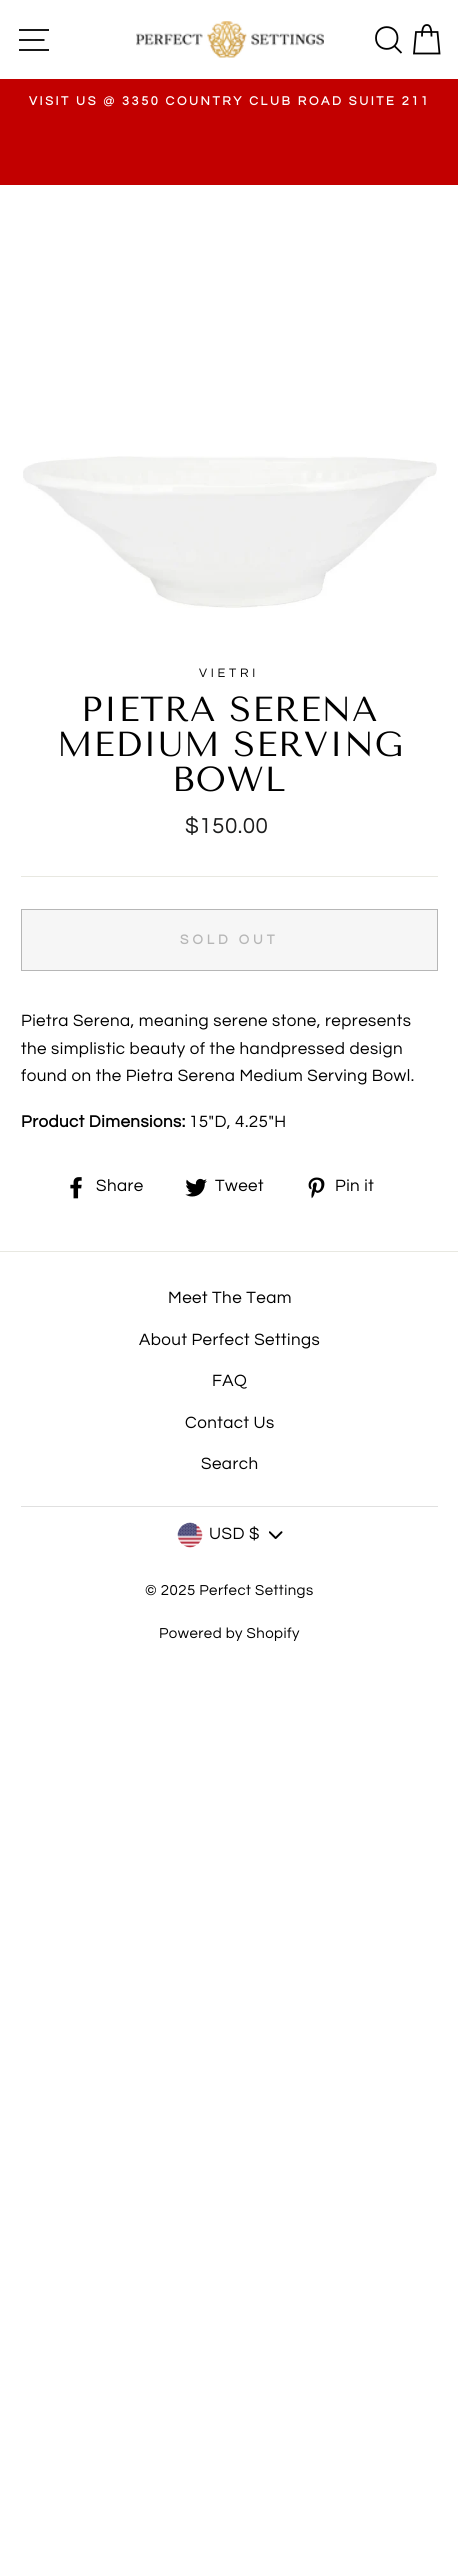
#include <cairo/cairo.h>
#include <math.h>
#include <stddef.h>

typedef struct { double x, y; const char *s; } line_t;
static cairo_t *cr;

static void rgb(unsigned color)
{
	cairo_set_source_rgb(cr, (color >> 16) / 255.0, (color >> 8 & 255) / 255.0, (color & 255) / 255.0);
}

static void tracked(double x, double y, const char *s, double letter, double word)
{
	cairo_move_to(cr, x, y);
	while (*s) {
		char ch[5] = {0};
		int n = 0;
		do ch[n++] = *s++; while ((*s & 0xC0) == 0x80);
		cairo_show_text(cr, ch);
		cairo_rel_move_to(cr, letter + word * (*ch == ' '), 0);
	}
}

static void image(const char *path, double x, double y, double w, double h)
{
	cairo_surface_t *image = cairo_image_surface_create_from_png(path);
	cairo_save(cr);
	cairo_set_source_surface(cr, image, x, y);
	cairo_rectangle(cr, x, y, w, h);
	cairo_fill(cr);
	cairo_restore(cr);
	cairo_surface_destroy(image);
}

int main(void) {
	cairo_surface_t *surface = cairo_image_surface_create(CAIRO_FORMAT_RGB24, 458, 2559);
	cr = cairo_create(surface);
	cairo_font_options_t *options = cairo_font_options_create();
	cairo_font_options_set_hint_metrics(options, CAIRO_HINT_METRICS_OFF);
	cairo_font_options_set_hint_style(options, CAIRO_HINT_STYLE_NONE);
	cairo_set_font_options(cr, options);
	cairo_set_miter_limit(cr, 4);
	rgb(0xffffff);
	cairo_paint(cr);
	cairo_new_path(cr);
	cairo_move_to(cr, 19, 30);
	cairo_line_to(cr, 49, 30);
	cairo_move_to(cr, 19, 40);
	cairo_line_to(cr, 44.5, 40);
	cairo_move_to(cr, 19, 50);
	cairo_line_to(cr, 49, 50);
	rgb(0x000000);
	cairo_set_line_width(cr, 1.8);
	cairo_stroke(cr);
	image("img/1.png", 136, 21, 188, 37);
	cairo_new_path(cr);
	cairo_move_to(cr, 397.5, 38);
	cairo_curve_to(cr, 397.5, 52.5, 376, 52.5, 376, 38);
	cairo_curve_to(cr, 376, 23.5, 397.5, 23.5, 397.5, 38);
	cairo_close_path(cr);
	cairo_move_to(cr, 401.5, 53);
	cairo_line_to(cr, 394.5, 46);
	cairo_move_to(cr, 422, 36.5);
	cairo_curve_to(cr, 422, 27, 424, 25, 427, 25);
	cairo_curve_to(cr, 429.5, 25, 431.5, 27, 431.5, 36.5);
	cairo_stroke(cr);
	cairo_new_path(cr);
	cairo_move_to(cr, 416, 32);
	cairo_line_to(cr, 437.5, 32);
	cairo_line_to(cr, 439.5, 53.5);
	cairo_line_to(cr, 414, 53.5);
	cairo_close_path(cr);
	cairo_stroke(cr);
	rgb(0xc20000);
	cairo_rectangle(cr, 0, 79, 458, 106);
	cairo_fill(cr);
	image("img/2.png", 23, 456, 414, 152);
	rgb(0xe8e8e1);
	cairo_rectangle(cr, 21, 876, 417, 1);
	cairo_fill(cr);
	rgb(0xf6f6f6);
	cairo_rectangle(cr, 21.5, 909.5, 416, 61);
	cairo_fill_preserve(cr);
	rgb(0xb6b6b6);
	cairo_set_line_width(cr, 1);
	cairo_stroke(cr);
	image("img/3.png", 70, 1177, 12, 22);
	image("img/4.png", 185, 1178, 22, 19);
	image("img/5.png", 308, 1177, 17, 22);
	rgb(0xe8e8e1);
	cairo_rectangle(cr, 0, 1251, 458, 1);
	cairo_fill(cr);
	rgb(0xe0e0e0);
	cairo_rectangle(cr, 21, 1506, 417, 1);
	cairo_fill(cr);
	image("img/6.png", 269, 1531, 14, 8);
	image("img/7.png", 177, 1522, 26, 26);
	cairo_select_font_face(cr, "Questrial", CAIRO_FONT_SLANT_NORMAL, CAIRO_FONT_WEIGHT_BOLD);
	cairo_set_font_size(cr, 12.75);
	rgb(0xffffff);
	tracked(29, 105, "VISIT US @ 3350 COUNTRY CLUB ROAD SUITE 211", 2.55, 0);
	cairo_select_font_face(cr, "Questrial", CAIRO_FONT_SLANT_NORMAL, CAIRO_FONT_WEIGHT_NORMAL);
	rgb(0x000000);
	tracked(199, 677, "VIETRI", 3.75, 0);
	cairo_select_font_face(cr, "Tenor Sans", CAIRO_FONT_SLANT_NORMAL, CAIRO_FONT_WEIGHT_NORMAL);
	cairo_set_font_size(cr, 34.75);
	{
		static const line_t items[] = {
			{81, 721, "PIETRA SERENA"},
			{57, 756, "MEDIUM SERVING"},
			{172, 791, "BOWL"},
		};
		for (size_t i = 0; i < sizeof items / sizeof *items; i++) {
			tracked(items[i].x, items[i].y, items[i].s, 0.9, 0);
		}
	}
	cairo_select_font_face(cr, "Questrial", CAIRO_FONT_SLANT_NORMAL, CAIRO_FONT_WEIGHT_NORMAL);
	cairo_set_font_size(cr, 22.5);
	rgb(0x1c1d1d);
	tracked(185, 833, "$150.00", 0.45, 0);
	cairo_select_font_face(cr, "Questrial", CAIRO_FONT_SLANT_NORMAL, CAIRO_FONT_WEIGHT_BOLD);
	cairo_set_font_size(cr, 13.75);
	rgb(0xb6b6b6);
	tracked(180, 944, "SOLD OUT", 4, 0);
	cairo_select_font_face(cr, "Questrial", CAIRO_FONT_SLANT_NORMAL, CAIRO_FONT_WEIGHT_NORMAL);
	cairo_set_font_size(cr, 17);
	rgb(0x000000);
	{
		static const line_t items[] = {
			{21, 1026, "Pietra Serena, meaning serene stone, represents"},
			{21, 1054, "the simplistic beauty of the handpressed design"},
			{21, 1081, "found on the Pietra Serena Medium Serving Bowl."},
		};
		for (size_t i = 0; i < sizeof items / sizeof *items; i++) {
			tracked(items[i].x, items[i].y, items[i].s, 0.45, 0);
		}
	}
	cairo_select_font_face(cr, "Questrial", CAIRO_FONT_SLANT_NORMAL, CAIRO_FONT_WEIGHT_BOLD);
	tracked(21, 1127, "Product Dimensions:", 0.45, 0);
	cairo_select_font_face(cr, "Questrial", CAIRO_FONT_SLANT_NORMAL, CAIRO_FONT_WEIGHT_NORMAL);
	{
		static const line_t items[] = {
			{189, 1127, "15\"D, 4.25\"H"},
			{96, 1191, "Share"},
			{215, 1191, "Tweet"},
			{335, 1191, "Pin it"},
			{168, 1303, "Meet The Team"},
			{139, 1345, "About Perfect Settings"},
			{212, 1386, "FAQ"},
			{185, 1428, "Contact Us"},
			{201, 1469, "Search"},
			{209, 1539, "USD $"},
		};
		for (size_t i = 0; i < sizeof items / sizeof *items; i++) {
			tracked(items[i].x, items[i].y, items[i].s, 0.45, 0);
		}
	}
	cairo_set_font_size(cr, 15);
	tracked(145, 1595, "© 2025 Perfect Settings", 0.45, 0);
	tracked(159, 1638, "Powered by Shopify", 0.45, 0);
	cairo_surface_write_to_png(surface, "page.png");
	cairo_font_options_destroy(options);
	cairo_destroy(cr);
	cairo_surface_destroy(surface);
	return 0;
}
